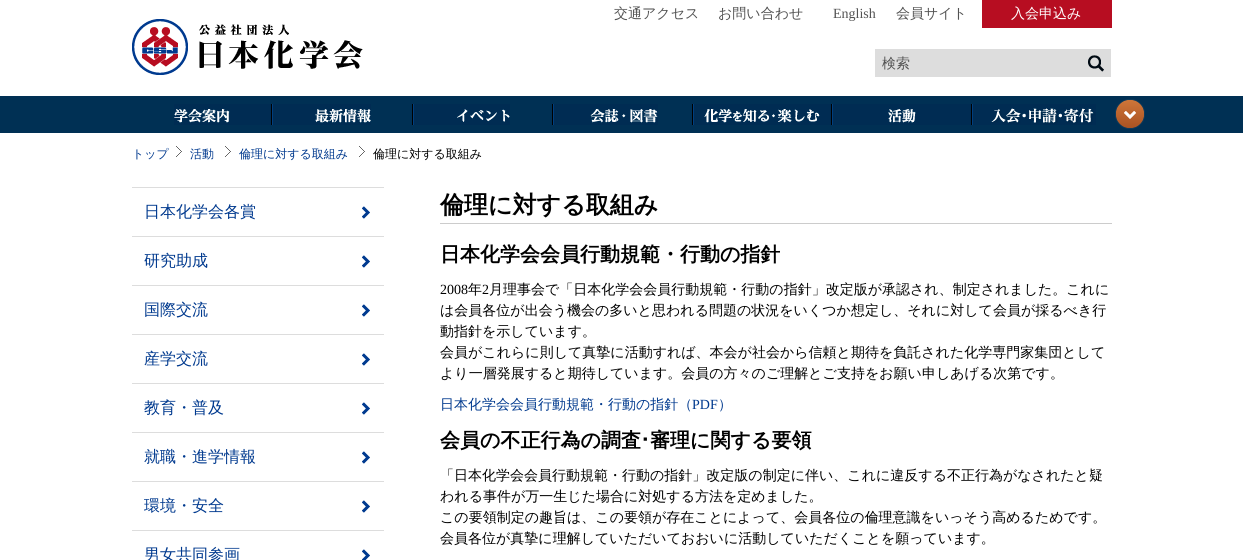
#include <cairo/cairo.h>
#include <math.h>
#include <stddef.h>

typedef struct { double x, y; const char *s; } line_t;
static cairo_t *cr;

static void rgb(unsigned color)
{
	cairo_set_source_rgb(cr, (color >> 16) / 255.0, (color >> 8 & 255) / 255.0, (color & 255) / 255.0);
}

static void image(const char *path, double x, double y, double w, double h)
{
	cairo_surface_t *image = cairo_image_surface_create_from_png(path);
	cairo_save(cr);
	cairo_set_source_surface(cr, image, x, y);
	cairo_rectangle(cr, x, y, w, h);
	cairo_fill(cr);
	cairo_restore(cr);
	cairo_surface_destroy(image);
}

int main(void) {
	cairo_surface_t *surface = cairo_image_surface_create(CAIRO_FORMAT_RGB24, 1243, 560);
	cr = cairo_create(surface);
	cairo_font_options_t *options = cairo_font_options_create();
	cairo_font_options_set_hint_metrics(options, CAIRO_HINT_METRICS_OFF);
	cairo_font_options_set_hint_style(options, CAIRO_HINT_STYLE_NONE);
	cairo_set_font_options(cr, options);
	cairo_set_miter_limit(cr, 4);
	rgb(0xffffff);
	cairo_paint(cr);
	rgb(0xb70d21);
	cairo_rectangle(cr, 982, 0, 130, 28);
	cairo_fill(cr);
	image("img/1.png", 132, 19, 231, 56);
	rgb(0xdddddd);
	cairo_rectangle(cr, 875, 49, 236, 28);
	cairo_fill(cr);
	image("img/2.png", 1088, 55, 16, 17);
	rgb(0x003054);
	cairo_rectangle(cr, 0, 96, 1243, 37);
	cairo_fill(cr);
	image("img/3.png", 174, 104, 98, 21);
	image("img/4.png", 272, 104, 99, 21);
	image("img/5.png", 412, 104, 98, 21);
	image("img/6.png", 552, 104, 106, 21);
	image("img/7.png", 692, 104, 140, 21);
	image("img/8.png", 832, 104, 140, 21);
	image("img/9.png", 972, 104, 124, 21);
	image("img/10.png", 1115, 99, 30, 30);
	image("img/11.png", 176, 146, 6, 11);
	image("img/11.png", 225, 146, 6, 11);
	image("img/11.png", 359, 146, 6, 11);
	rgb(0xdddddd);
	cairo_rectangle(cr, 132, 187, 252, 1);
	cairo_fill(cr);
	cairo_rectangle(cr, 132, 236, 252, 1);
	cairo_fill(cr);
	image("img/12.png", 362, 206, 8, 13);
	cairo_rectangle(cr, 132, 285, 252, 1);
	cairo_fill(cr);
	image("img/12.png", 362, 255, 8, 13);
	cairo_rectangle(cr, 132, 334, 252, 1);
	cairo_fill(cr);
	image("img/12.png", 362, 304, 8, 13);
	cairo_rectangle(cr, 132, 383, 252, 1);
	cairo_fill(cr);
	image("img/12.png", 362, 353, 8, 13);
	cairo_rectangle(cr, 132, 432, 252, 1);
	cairo_fill(cr);
	image("img/12.png", 362, 402, 8, 13);
	cairo_rectangle(cr, 132, 481, 252, 1);
	cairo_fill(cr);
	image("img/12.png", 362, 451, 8, 13);
	cairo_rectangle(cr, 132, 530, 252, 1);
	cairo_fill(cr);
	image("img/12.png", 362, 500, 8, 13);
	image("img/13.png", 362, 549, 8, 11);
	rgb(0xcccccc);
	cairo_rectangle(cr, 440, 223, 672, 1);
	cairo_fill(cr);
	cairo_select_font_face(cr, "WenQuanYi Zen Hei Medium", CAIRO_FONT_SLANT_NORMAL, CAIRO_FONT_WEIGHT_NORMAL);
	cairo_set_font_size(cr, 14);
	rgb(0x525252);
	cairo_move_to(cr, 614, 18);
	cairo_show_text(cr, "交通アクセス");
	cairo_move_to(cr, 718, 18);
	cairo_show_text(cr, "お問い合わせ");
	cairo_select_font_face(cr, "Liberation Serif", CAIRO_FONT_SLANT_NORMAL, CAIRO_FONT_WEIGHT_NORMAL);
	cairo_move_to(cr, 833, 18);
	cairo_show_text(cr, "English");
	cairo_select_font_face(cr, "WenQuanYi Zen Hei Medium", CAIRO_FONT_SLANT_NORMAL, CAIRO_FONT_WEIGHT_NORMAL);
	cairo_move_to(cr, 896, 18);
	cairo_show_text(cr, "会員サイト");
	rgb(0xffffff);
	cairo_move_to(cr, 1011, 18);
	cairo_show_text(cr, "入会申込み");
	rgb(0x525252);
	cairo_move_to(cr, 882, 68);
	cairo_show_text(cr, "検索");
	cairo_set_font_size(cr, 12);
	rgb(0x00398e);
	{
		static const line_t items[] = {
			{132, 158, "トップ"},
			{190, 158, "活動"},
			{239, 158, "倫理に対する取組み"},
		};
		for (size_t i = 0; i < sizeof items / sizeof *items; i++) {
			cairo_move_to(cr, items[i].x, items[i].y);
			cairo_show_text(cr, items[i].s);
		}
	}
	rgb(0x000000);
	cairo_move_to(cr, 373, 158);
	cairo_show_text(cr, "倫理に対する取組み");
	cairo_set_font_size(cr, 16);
	rgb(0x00398e);
	{
		static const line_t items[] = {
			{144, 217, "日本化学会各賞"},
			{144, 266, "研究助成"},
			{144, 315, "国際交流"},
			{144, 364, "産学交流"},
			{144, 413, "教育・普及"},
			{144, 462, "就職・進学情報"},
			{144, 511, "環境・安全"},
			{144, 560, "男女共同参画"},
		};
		for (size_t i = 0; i < sizeof items / sizeof *items; i++) {
			cairo_move_to(cr, items[i].x, items[i].y);
			cairo_show_text(cr, items[i].s);
		}
	}
	cairo_select_font_face(cr, "WenQuanYi Zen Hei", CAIRO_FONT_SLANT_NORMAL, CAIRO_FONT_WEIGHT_BOLD);
	cairo_set_font_size(cr, 24);
	rgb(0x000000);
	cairo_move_to(cr, 440, 213);
	cairo_show_text(cr, "倫理に対する取組み");
	cairo_set_font_size(cr, 20);
	cairo_move_to(cr, 440, 261);
	cairo_show_text(cr, "日本化学会会員行動規範・行動の指針");
	cairo_select_font_face(cr, "Liberation Serif", CAIRO_FONT_SLANT_NORMAL, CAIRO_FONT_WEIGHT_NORMAL);
	cairo_set_font_size(cr, 14);
	cairo_move_to(cr, 440, 294);
	cairo_show_text(cr, "2008");
	cairo_select_font_face(cr, "WenQuanYi Zen Hei Medium", CAIRO_FONT_SLANT_NORMAL, CAIRO_FONT_WEIGHT_NORMAL);
	cairo_move_to(cr, 468, 294);
	cairo_show_text(cr, "年");
	cairo_select_font_face(cr, "Liberation Serif", CAIRO_FONT_SLANT_NORMAL, CAIRO_FONT_WEIGHT_NORMAL);
	cairo_move_to(cr, 482, 294);
	cairo_show_text(cr, "2");
	cairo_select_font_face(cr, "WenQuanYi Zen Hei Medium", CAIRO_FONT_SLANT_NORMAL, CAIRO_FONT_WEIGHT_NORMAL);
	{
		static const line_t items[] = {
			{489, 294, "月理事会で「日本化学会会員行動規範・行動の指針」改定版が承認され、制定されました。これに"},
			{440, 315, "は会員各位が出会う機会の多いと思われる問題の状況をいくつか想定し、それに対して会員が採るべき行"},
			{440, 336, "動指針を示しています。"},
			{440, 357, "会員がこれらに則して真摯に活動すれば、本会が社会から信頼と期待を負託された化学専門家集団として"},
			{440, 378, "より一層発展すると期待しています。会員の方々のご理解とご支持をお願い申しあげる次第です。"},
		};
		for (size_t i = 0; i < sizeof items / sizeof *items; i++) {
			cairo_move_to(cr, items[i].x, items[i].y);
			cairo_show_text(cr, items[i].s);
		}
	}
	rgb(0x00398e);
	cairo_move_to(cr, 440, 409);
	cairo_show_text(cr, "日本化学会会員行動規範・行動の指針（");
	cairo_select_font_face(cr, "Liberation Serif", CAIRO_FONT_SLANT_NORMAL, CAIRO_FONT_WEIGHT_NORMAL);
	cairo_move_to(cr, 692, 409);
	cairo_show_text(cr, "PDF");
	cairo_select_font_face(cr, "WenQuanYi Zen Hei Medium", CAIRO_FONT_SLANT_NORMAL, CAIRO_FONT_WEIGHT_NORMAL);
	cairo_move_to(cr, 718, 409);
	cairo_show_text(cr, "）");
	cairo_select_font_face(cr, "WenQuanYi Zen Hei", CAIRO_FONT_SLANT_NORMAL, CAIRO_FONT_WEIGHT_BOLD);
	cairo_set_font_size(cr, 20);
	rgb(0x000000);
	cairo_move_to(cr, 440, 447);
	cairo_show_text(cr, "会員の不正行為の調査");
	cairo_select_font_face(cr, "IPAPGothic", CAIRO_FONT_SLANT_NORMAL, CAIRO_FONT_WEIGHT_BOLD);
	cairo_move_to(cr, 640, 447);
	cairo_show_text(cr, "･");
	cairo_select_font_face(cr, "WenQuanYi Zen Hei", CAIRO_FONT_SLANT_NORMAL, CAIRO_FONT_WEIGHT_BOLD);
	cairo_move_to(cr, 650, 447);
	cairo_show_text(cr, "審理に関する要領");
	cairo_select_font_face(cr, "WenQuanYi Zen Hei Medium", CAIRO_FONT_SLANT_NORMAL, CAIRO_FONT_WEIGHT_NORMAL);
	cairo_set_font_size(cr, 14);
	{
		static const line_t items[] = {
			{440, 480, "「日本化学会会員行動規範・行動の指針」改定版の制定に伴い、これに違反する不正行為がなされたと疑"},
			{440, 501, "われる事件が万一生じた場合に対処する方法を定めました。"},
			{440, 522, "この要領制定の趣旨は、この要領が存在ことによって、会員各位の倫理意識をいっそう高めるためです。"},
			{440, 543, "会員各位が真摯に理解していただいておおいに活動していただくことを願っています。"},
		};
		for (size_t i = 0; i < sizeof items / sizeof *items; i++) {
			cairo_move_to(cr, items[i].x, items[i].y);
			cairo_show_text(cr, items[i].s);
		}
	}
	cairo_surface_write_to_png(surface, "page.png");
	cairo_font_options_destroy(options);
	cairo_destroy(cr);
	cairo_surface_destroy(surface);
	return 0;
}
